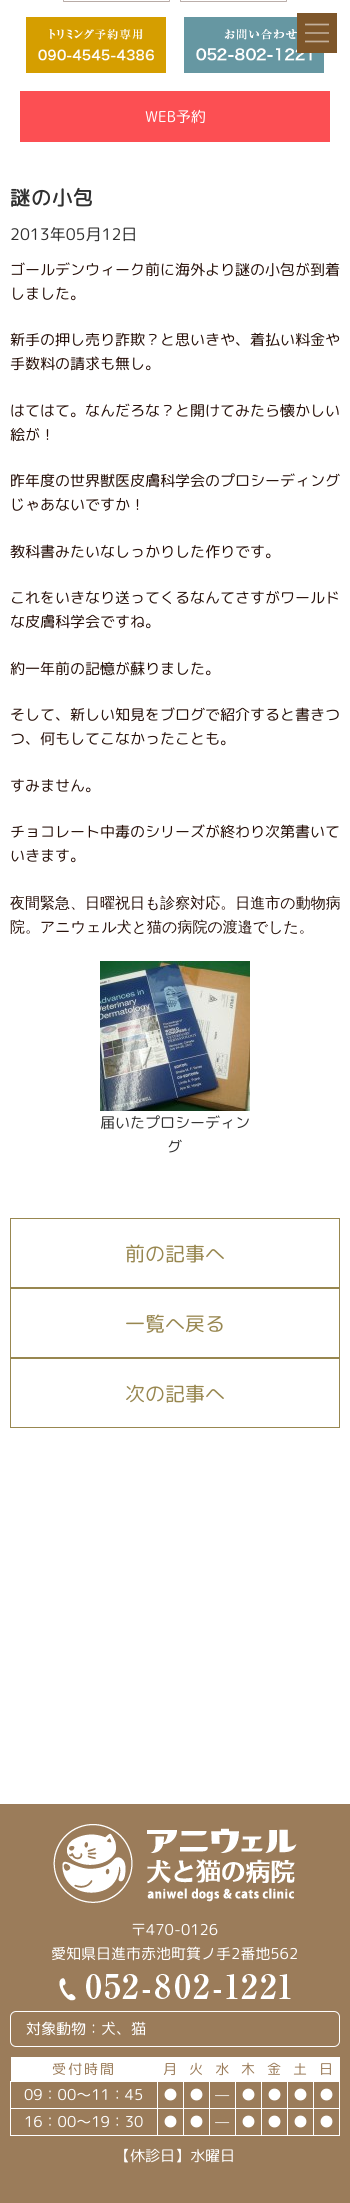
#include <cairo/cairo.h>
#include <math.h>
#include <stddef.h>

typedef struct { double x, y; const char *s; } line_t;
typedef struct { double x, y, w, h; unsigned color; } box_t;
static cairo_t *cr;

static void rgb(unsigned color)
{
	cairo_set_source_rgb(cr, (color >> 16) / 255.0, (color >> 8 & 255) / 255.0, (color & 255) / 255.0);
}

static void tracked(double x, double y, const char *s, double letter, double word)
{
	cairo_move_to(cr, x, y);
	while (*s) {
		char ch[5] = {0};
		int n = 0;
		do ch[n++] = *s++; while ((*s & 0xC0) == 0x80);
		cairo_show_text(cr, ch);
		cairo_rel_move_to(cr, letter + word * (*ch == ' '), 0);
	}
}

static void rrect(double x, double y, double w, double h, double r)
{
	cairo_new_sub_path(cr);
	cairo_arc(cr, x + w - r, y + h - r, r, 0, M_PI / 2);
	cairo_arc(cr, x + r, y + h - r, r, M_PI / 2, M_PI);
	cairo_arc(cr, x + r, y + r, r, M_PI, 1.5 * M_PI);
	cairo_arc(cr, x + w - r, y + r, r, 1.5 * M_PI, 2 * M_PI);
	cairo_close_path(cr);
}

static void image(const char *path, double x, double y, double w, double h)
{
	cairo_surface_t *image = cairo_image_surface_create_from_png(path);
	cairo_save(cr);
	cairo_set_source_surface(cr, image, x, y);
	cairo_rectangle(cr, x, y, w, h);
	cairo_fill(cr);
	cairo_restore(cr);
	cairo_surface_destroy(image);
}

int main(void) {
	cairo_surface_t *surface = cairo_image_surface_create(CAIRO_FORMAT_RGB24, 350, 2203);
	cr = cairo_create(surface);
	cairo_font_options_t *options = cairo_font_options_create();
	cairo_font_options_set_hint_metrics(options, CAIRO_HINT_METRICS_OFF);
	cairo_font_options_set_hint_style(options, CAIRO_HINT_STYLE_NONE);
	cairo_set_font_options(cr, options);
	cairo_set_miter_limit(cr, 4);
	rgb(0xffffff);
	cairo_paint(cr);
	rgb(0x6697a2);
	cairo_rectangle(cr, 184, 17, 140, 56);
	cairo_fill(cr);
	image("img/5.png", 196, 29, 116, 32);
	rgb(0x7e562a);
	cairo_rectangle(cr, 297, 13, 40, 40);
	cairo_fill(cr);
	image("img/1.png", 305, 23, 24, 20);
	image("img/2.png", 63, 0, 107, 2);
	image("img/3.png", 180, 0, 107, 2);
	rgb(0xd59e00);
	cairo_rectangle(cr, 26, 17, 140, 56);
	cairo_fill(cr);
	image("img/4.png", 38, 29, 116, 32);
	rgb(0xfc4f53);
	cairo_rectangle(cr, 20, 91, 310, 51);
	cairo_fill(cr);
	image("img/6.png", 100, 961, 150, 150);
	cairo_rectangle(cr, 10.5, 1218.5, 329, 69);
	rgb(0x988750);
	cairo_set_line_width(cr, 1);
	cairo_stroke(cr);
	cairo_rectangle(cr, 10.5, 1288.5, 329, 69);
	cairo_stroke(cr);
	cairo_rectangle(cr, 10.5, 1358.5, 329, 69);
	cairo_stroke(cr);
	rgb(0x9b7c5a);
	cairo_rectangle(cr, 0, 1804, 350, 399);
	cairo_fill(cr);
	image("img/7.png", 53, 1824, 244, 79);
	image("img/8.png", 59, 1974, 232, 27);
	rrect(10.5, 2011.5, 329, 35, 5.5);
	rgb(0xffffff);
	cairo_stroke(cr);
	{
		static const box_t items[] = {
			{11, 2057, 147, 24, 0xffffff},
			{158, 2057, 182, 25, 0xffffff},
			{313, 2108, 27, 1, 0xffffff},
			{339, 2081, 1, 55, 0xffffff},
			{313, 2135, 27, 1, 0xffffff},
			{313, 2108, 1, 28, 0xffffff},
			{287, 2108, 27, 1, 0xffffff},
			{287, 2135, 27, 1, 0xffffff},
			{287, 2108, 1, 28, 0xffffff},
			{261, 2108, 27, 1, 0xffffff},
			{261, 2135, 27, 1, 0xffffff},
			{261, 2108, 1, 28, 0xffffff},
			{235, 2108, 27, 1, 0xffffff},
			{235, 2135, 27, 1, 0xffffff},
			{235, 2108, 1, 28, 0xffffff},
			{209, 2108, 27, 1, 0xffffff},
			{209, 2135, 27, 1, 0xffffff},
			{209, 2108, 1, 28, 0xffffff},
			{183, 2108, 27, 1, 0xffffff},
			{183, 2135, 27, 1, 0xffffff},
			{183, 2108, 1, 28, 0xffffff},
			{157, 2108, 27, 1, 0xffffff},
			{157, 2135, 27, 1, 0xffffff},
			{157, 2108, 1, 28, 0xffffff},
			{10, 2108, 148, 1, 0xffffff},
			{157, 2081, 1, 28, 0xffffff},
			{10, 2081, 148, 1, 0xffffff},
			{10, 2135, 148, 1, 0xffffff},
			{10, 2108, 1, 28, 0xffffff},
			{10, 2081, 1, 28, 0xffffff},
			{183, 2081, 1, 28, 0xffffff},
			{209, 2081, 1, 28, 0xffffff},
			{235, 2081, 1, 28, 0xffffff},
			{261, 2081, 1, 28, 0xffffff},
			{287, 2081, 1, 28, 0xffffff},
			{313, 2081, 1, 28, 0xffffff},
		};
		for (size_t i = 0; i < sizeof items / sizeof *items; i++) {
			rgb(items[i].color);
			cairo_rectangle(cr, items[i].x, items[i].y, items[i].w, items[i].h);
			cairo_fill(cr);
		}
	}
	cairo_select_font_face(cr, "Rounded Mplus 1c", CAIRO_FONT_SLANT_NORMAL, CAIRO_FONT_WEIGHT_NORMAL);
	cairo_set_font_size(cr, 15);
	cairo_move_to(cr, 145, 122);
	cairo_show_text(cr, "WEB予約");
	cairo_select_font_face(cr, "Rounded Mplus 1c", CAIRO_FONT_SLANT_NORMAL, CAIRO_FONT_WEIGHT_BOLD);
	cairo_set_font_size(cr, 20);
	rgb(0x303030);
	tracked(10, 205, "謎の小包", 1, 0);
	cairo_select_font_face(cr, "Rounded Mplus 1c", CAIRO_FONT_SLANT_NORMAL, CAIRO_FONT_WEIGHT_NORMAL);
	cairo_set_font_size(cr, 16);
	cairo_move_to(cr, 10, 240);
	cairo_show_text(cr, "2013年05月12日");
	cairo_set_font_size(cr, 15);
	rgb(0x260f08);
	{
		static const line_t items[] = {
			{10, 275, "ゴールデンウィーク前に海外より謎の小包が到着"},
			{10, 299, "しました。"},
			{10, 345, "新手の押し売り詐欺？と思いきや、着払い料金や"},
			{10, 369, "手数料の請求も無し。"},
			{10, 416, "はてはて。なんだろな？と開けてみたら懐かしい"},
			{10, 440, "絵が！"},
			{10, 486, "昨年度の世界獣医皮膚科学会のプロシーディング"},
			{10, 510, "じゃあないですか！"},
			{10, 557, "教科書みたいなしっかりした作りです。"},
			{10, 603, "これをいきなり送ってくるなんてさすがワールド"},
			{10, 627, "な皮膚科学会ですね。"},
			{10, 674, "約一年前の記憶が蘇りました。"},
			{10, 720, "そして、新しい知見をブログで紹介すると書きつ"},
			{10, 744, "つ、何もしてこなかったことも。"},
			{10, 791, "すみません。"},
			{10, 837, "チョコレート中毒のシリーズが終わり次第書いて"},
			{10, 861, "いきます。"},
		};
		for (size_t i = 0; i < sizeof items / sizeof *items; i++) {
			cairo_move_to(cr, items[i].x, items[i].y);
			cairo_show_text(cr, items[i].s);
		}
	}
	cairo_select_font_face(cr, "WenQuanYi Zen Hei Medium", CAIRO_FONT_SLANT_NORMAL, CAIRO_FONT_WEIGHT_NORMAL);
	cairo_move_to(cr, 10, 908);
	cairo_show_text(cr, "夜間緊急、日曜祝日も診察対応。日進市の動物病");
	cairo_move_to(cr, 10, 932);
	cairo_show_text(cr, "院。アニウェル犬と猫の病院の渡邉でした。");
	cairo_select_font_face(cr, "Rounded Mplus 1c", CAIRO_FONT_SLANT_NORMAL, CAIRO_FONT_WEIGHT_NORMAL);
	rgb(0x303030);
	cairo_move_to(cr, 100, 1128);
	cairo_show_text(cr, "届いたプロシーディン");
	cairo_move_to(cr, 167, 1152);
	cairo_show_text(cr, "グ");
	cairo_set_font_size(cr, 20);
	rgb(0x988750);
	{
		static const line_t items[] = {
			{125, 1261, "前の記事へ"},
			{125, 1331, "一覧へ戻る"},
			{125, 1401, "次の記事へ"},
		};
		for (size_t i = 0; i < sizeof items / sizeof *items; i++) {
			cairo_move_to(cr, items[i].x, items[i].y);
			cairo_show_text(cr, items[i].s);
		}
	}
	cairo_set_font_size(cr, 15);
	rgb(0xffffff);
	{
		static const line_t items[] = {
			{131, 1935, "〒470-0126"},
			{51, 1959, "愛知県日進市赤池町箕ノ手2番地562"},
			{26, 2034, "対象動物：犬、猫"},
		};
		for (size_t i = 0; i < sizeof items / sizeof *items; i++) {
			cairo_move_to(cr, items[i].x, items[i].y);
			cairo_show_text(cr, items[i].s);
		}
	}
	cairo_set_font_size(cr, 14);
	rgb(0x9b7c5a);
	tracked(52, 2074, "受付時間", 2, 0);
	{
		static const line_t items[] = {
			{163, 2074, "月"},
			{189, 2074, "火"},
			{215, 2074, "水"},
			{241, 2074, "木"},
			{267, 2074, "金"},
			{293, 2074, "土"},
			{319, 2074, "日"},
		};
		for (size_t i = 0; i < sizeof items / sizeof *items; i++) {
			cairo_move_to(cr, items[i].x, items[i].y);
			cairo_show_text(cr, items[i].s);
		}
	}
	cairo_set_font_size(cr, 15);
	rgb(0xffffff);
	{
		static const line_t items[] = {
			{24, 2100, "09：00～11：45"},
			{163, 2100, "●"},
			{189, 2100, "●"},
			{215, 2100, "—"},
			{241, 2100, "●"},
			{267, 2100, "●"},
			{293, 2100, "●"},
			{319, 2100, "●"},
			{24, 2127, "16：00～19：30"},
			{163, 2127, "●"},
			{189, 2127, "●"},
			{215, 2127, "—"},
			{241, 2127, "●"},
			{267, 2127, "●"},
			{293, 2127, "●"},
			{319, 2127, "●"},
			{115, 2161, "【休診日】水曜日"},
		};
		for (size_t i = 0; i < sizeof items / sizeof *items; i++) {
			cairo_move_to(cr, items[i].x, items[i].y);
			cairo_show_text(cr, items[i].s);
		}
	}
	cairo_surface_write_to_png(surface, "page.png");
	cairo_font_options_destroy(options);
	cairo_destroy(cr);
	cairo_surface_destroy(surface);
	return 0;
}
